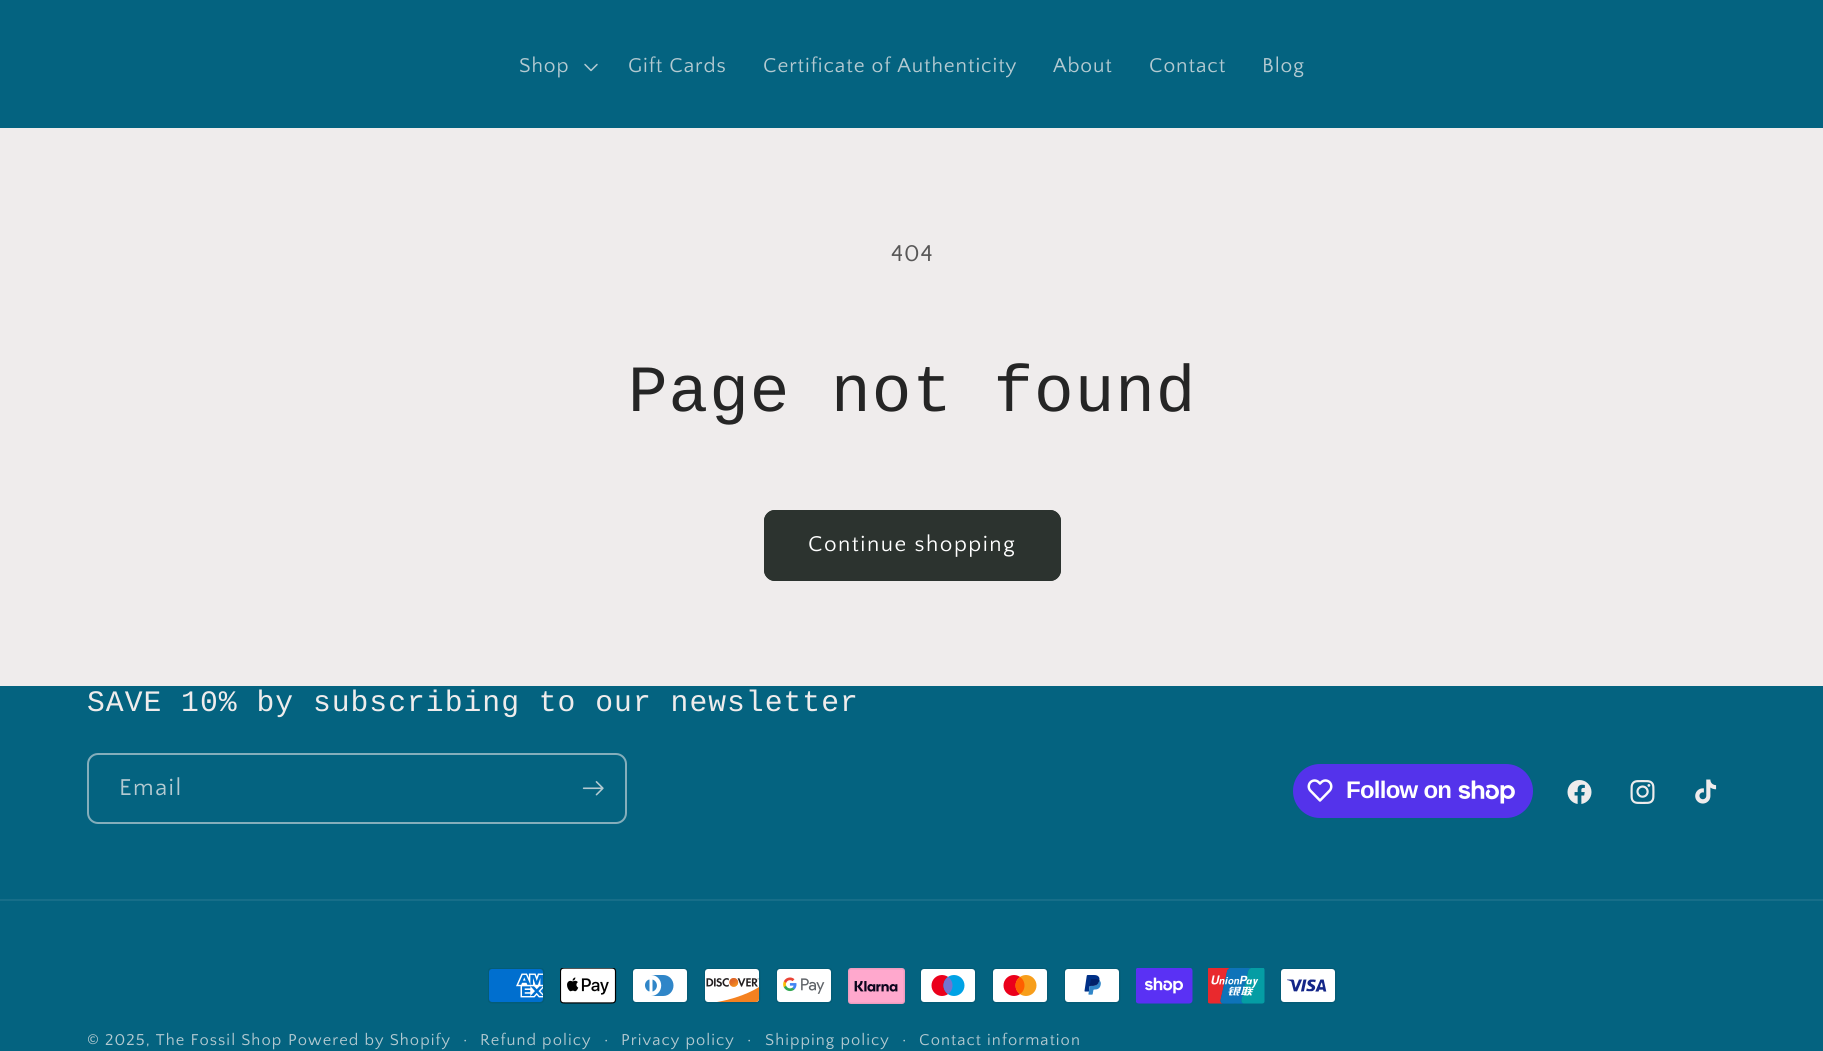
#include <cairo/cairo.h>
#include <math.h>
#include <stddef.h>

typedef struct { double x, y; const char *s; } line_t;
static cairo_t *cr;

static void rgb(unsigned color)
{
	cairo_set_source_rgb(cr, (color >> 16) / 255.0, (color >> 8 & 255) / 255.0, (color & 255) / 255.0);
}

static void tracked(double x, double y, const char *s, double letter, double word)
{
	cairo_move_to(cr, x, y);
	while (*s) {
		char ch[5] = {0};
		int n = 0;
		do ch[n++] = *s++; while ((*s & 0xC0) == 0x80);
		cairo_show_text(cr, ch);
		cairo_rel_move_to(cr, letter + word * (*ch == ' '), 0);
	}
}

static void rrect(double x, double y, double w, double h, double r)
{
	cairo_new_sub_path(cr);
	cairo_arc(cr, x + w - r, y + h - r, r, 0, M_PI / 2);
	cairo_arc(cr, x + r, y + h - r, r, M_PI / 2, M_PI);
	cairo_arc(cr, x + r, y + r, r, M_PI, 1.5 * M_PI);
	cairo_arc(cr, x + w - r, y + r, r, 1.5 * M_PI, 2 * M_PI);
	cairo_close_path(cr);
}

static void image(const char *path, double x, double y, double w, double h)
{
	cairo_surface_t *image = cairo_image_surface_create_from_png(path);
	cairo_save(cr);
	cairo_set_source_surface(cr, image, x, y);
	cairo_rectangle(cr, x, y, w, h);
	cairo_fill(cr);
	cairo_restore(cr);
	cairo_surface_destroy(image);
}

int main(void) {
	cairo_surface_t *surface = cairo_image_surface_create(CAIRO_FORMAT_RGB24, 1823, 1051);
	cr = cairo_create(surface);
	cairo_font_options_t *options = cairo_font_options_create();
	cairo_font_options_set_hint_metrics(options, CAIRO_HINT_METRICS_OFF);
	cairo_font_options_set_hint_style(options, CAIRO_HINT_STYLE_NONE);
	cairo_set_font_options(cr, options);
	cairo_set_miter_limit(cr, 4);
	rgb(0xefecec);
	cairo_paint(cr);
	rgb(0x046380);
	cairo_rectangle(cr, 0, 0, 1823, 128);
	cairo_fill(cr);
	image("img/1.png", 584, 63, 14, 9);
	rgb(0x2c332f);
	rrect(764, 510, 297, 71, 11);
	cairo_fill(cr);
	rrect(765, 511, 295, 69, 10);
	cairo_stroke(cr);
	rgb(0x046380);
	cairo_rectangle(cr, 0, 686, 1823, 365);
	cairo_fill(cr);
	rrect(88, 754, 538, 69, 10);
	rgb(0x85aebb);
	cairo_stroke(cr);
	image("img/2.png", 582, 781, 22, 15);
	rgb(0x5433eb);
	rrect(1293, 764, 240, 54, 27);
	cairo_fill(cr);
	image("img/3.png", 1307, 779, 26, 23);
	image("img/4.png", 1458, 780, 57, 24);
	image("img/5.png", 1567, 780, 25, 24);
	image("img/6.png", 1630, 780, 25, 24);
	image("img/7.png", 1695, 779, 22, 25);
	rgb(0x176e89);
	cairo_rectangle(cr, 0, 899, 1823, 2);
	cairo_fill(cr);
	image("img/8.png", 488, 968, 57, 36);
	image("img/9.png", 560, 968, 57, 36);
	image("img/10.png", 632, 968, 57, 36);
	image("img/11.png", 704, 968, 57, 36);
	image("img/12.png", 776, 968, 57, 36);
	image("img/13.png", 848, 968, 57, 36);
	image("img/14.png", 920, 968, 57, 36);
	image("img/15.png", 992, 968, 57, 36);
	image("img/16.png", 1064, 968, 57, 36);
	image("img/17.png", 1136, 968, 57, 36);
	image("img/18.png", 1208, 968, 57, 36);
	image("img/19.png", 1280, 968, 57, 36);
	cairo_select_font_face(cr, "Quattrocento Sans", CAIRO_FONT_SLANT_NORMAL, CAIRO_FONT_WEIGHT_NORMAL);
	cairo_set_font_size(cr, 21);
	rgb(0xb4cad1);
	{
		static const line_t items[] = {
			{519, 72, "Shop"},
			{628, 72, "Gift Cards"},
			{763, 72, "Certificate of Authenticity"},
			{1053, 72, "About"},
			{1149, 72, "Contact"},
			{1262, 72, "Blog"},
		};
		for (size_t i = 0; i < sizeof items / sizeof *items; i++) {
			tracked(items[i].x, items[i].y, items[i].s, 0.9, 0);
		}
	}
	cairo_set_font_size(cr, 24);
	rgb(0x585757);
	tracked(891, 261, "404", 0.9, 0);
	cairo_select_font_face(cr, "Liberation Mono", CAIRO_FONT_SLANT_NORMAL, CAIRO_FONT_WEIGHT_NORMAL);
	cairo_set_font_size(cr, 66);
	rgb(0x252525);
	tracked(628, 411, "Page not found", 1, 0);
	cairo_select_font_face(cr, "Quattrocento Sans", CAIRO_FONT_SLANT_NORMAL, CAIRO_FONT_WEIGHT_NORMAL);
	cairo_set_font_size(cr, 22.5);
	rgb(0xffffff);
	tracked(808, 551, "Continue shopping", 1.5, 0);
	cairo_select_font_face(cr, "Liberation Mono", CAIRO_FONT_SLANT_NORMAL, CAIRO_FONT_WEIGHT_NORMAL);
	cairo_set_font_size(cr, 29.7);
	rgb(0xefecec);
	tracked(87, 711, "SAVE 10% by subscribing to our newsletter", 1, 0);
	cairo_select_font_face(cr, "Quattrocento Sans", CAIRO_FONT_SLANT_NORMAL, CAIRO_FONT_WEIGHT_NORMAL);
	cairo_set_font_size(cr, 24);
	rgb(0xb4cad1);
	tracked(119, 795, "Email", 1.5, 0);
	cairo_select_font_face(cr, "Liberation Sans", CAIRO_FONT_SLANT_NORMAL, CAIRO_FONT_WEIGHT_BOLD);
	rgb(0xffffff);
	tracked(1346, 798, "Follow on", -0.75, 0);
	cairo_select_font_face(cr, "Quattrocento Sans", CAIRO_FONT_SLANT_NORMAL, CAIRO_FONT_WEIGHT_NORMAL);
	cairo_set_font_size(cr, 16.5);
	rgb(0xb4cad1);
	tracked(87, 1045, "© 2025, The Fossil Shop", 1.05, 0);
	tracked(288, 1045, "Powered by Shopify", 1.05, 0);
	cairo_set_font_size(cr, 18);
	tracked(463, 1045, "·", 1.05, 0);
	cairo_set_font_size(cr, 16.5);
	tracked(480, 1045, "Refund policy", 1.05, 0);
	cairo_set_font_size(cr, 18);
	tracked(604, 1045, "·", 1.05, 0);
	cairo_set_font_size(cr, 16.5);
	tracked(621, 1045, "Privacy policy", 1.05, 0);
	cairo_set_font_size(cr, 18);
	tracked(747, 1045, "·", 1.05, 0);
	cairo_set_font_size(cr, 16.5);
	tracked(765, 1045, "Shipping policy", 1.05, 0);
	cairo_set_font_size(cr, 18);
	tracked(902, 1045, "·", 1.05, 0);
	cairo_set_font_size(cr, 16.5);
	tracked(919, 1045, "Contact information", 1.05, 0);
	cairo_surface_write_to_png(surface, "page.png");
	cairo_font_options_destroy(options);
	cairo_destroy(cr);
	cairo_surface_destroy(surface);
	return 0;
}
